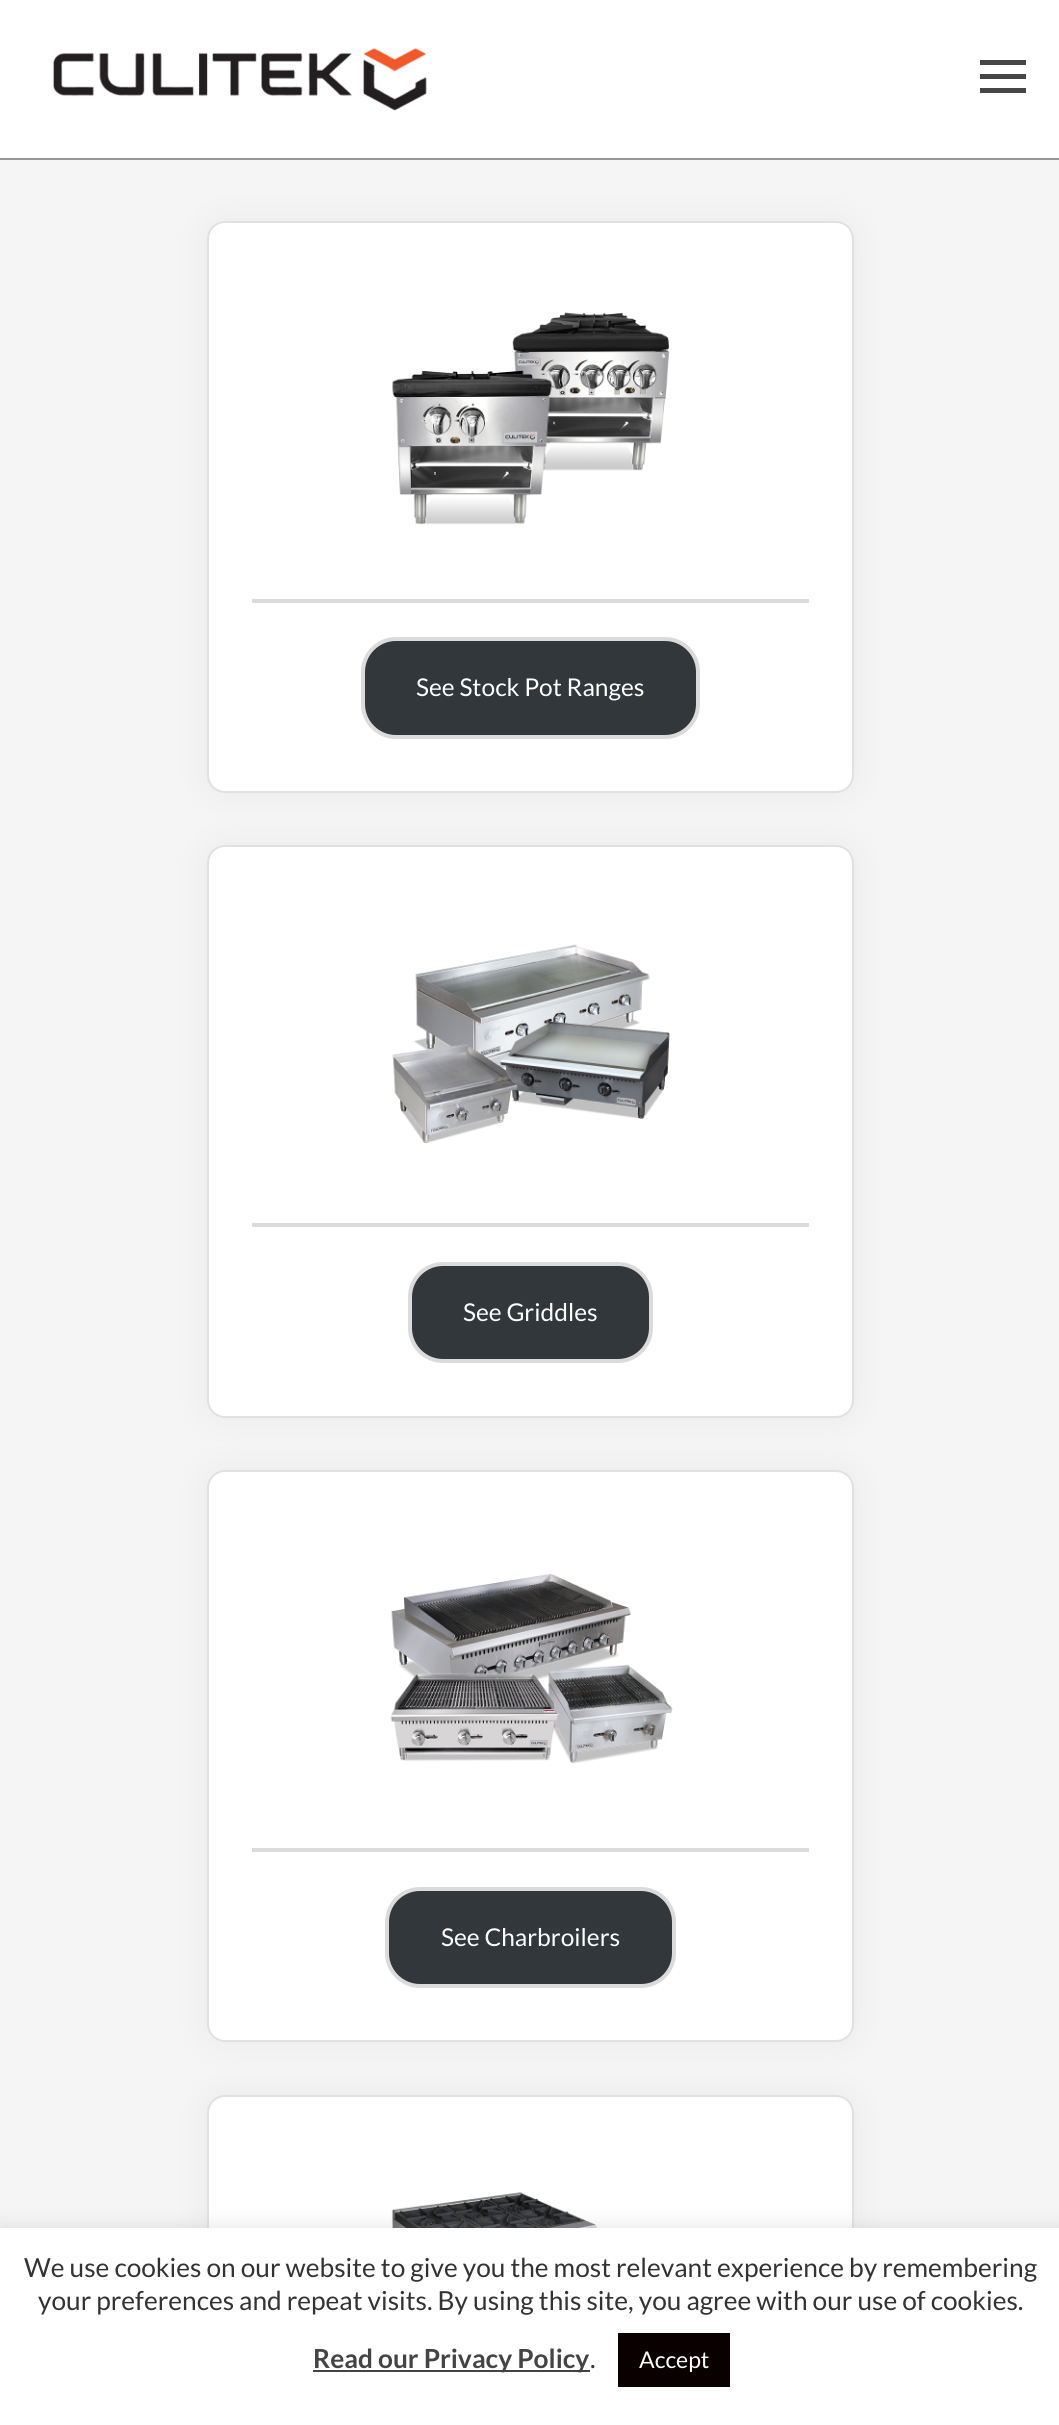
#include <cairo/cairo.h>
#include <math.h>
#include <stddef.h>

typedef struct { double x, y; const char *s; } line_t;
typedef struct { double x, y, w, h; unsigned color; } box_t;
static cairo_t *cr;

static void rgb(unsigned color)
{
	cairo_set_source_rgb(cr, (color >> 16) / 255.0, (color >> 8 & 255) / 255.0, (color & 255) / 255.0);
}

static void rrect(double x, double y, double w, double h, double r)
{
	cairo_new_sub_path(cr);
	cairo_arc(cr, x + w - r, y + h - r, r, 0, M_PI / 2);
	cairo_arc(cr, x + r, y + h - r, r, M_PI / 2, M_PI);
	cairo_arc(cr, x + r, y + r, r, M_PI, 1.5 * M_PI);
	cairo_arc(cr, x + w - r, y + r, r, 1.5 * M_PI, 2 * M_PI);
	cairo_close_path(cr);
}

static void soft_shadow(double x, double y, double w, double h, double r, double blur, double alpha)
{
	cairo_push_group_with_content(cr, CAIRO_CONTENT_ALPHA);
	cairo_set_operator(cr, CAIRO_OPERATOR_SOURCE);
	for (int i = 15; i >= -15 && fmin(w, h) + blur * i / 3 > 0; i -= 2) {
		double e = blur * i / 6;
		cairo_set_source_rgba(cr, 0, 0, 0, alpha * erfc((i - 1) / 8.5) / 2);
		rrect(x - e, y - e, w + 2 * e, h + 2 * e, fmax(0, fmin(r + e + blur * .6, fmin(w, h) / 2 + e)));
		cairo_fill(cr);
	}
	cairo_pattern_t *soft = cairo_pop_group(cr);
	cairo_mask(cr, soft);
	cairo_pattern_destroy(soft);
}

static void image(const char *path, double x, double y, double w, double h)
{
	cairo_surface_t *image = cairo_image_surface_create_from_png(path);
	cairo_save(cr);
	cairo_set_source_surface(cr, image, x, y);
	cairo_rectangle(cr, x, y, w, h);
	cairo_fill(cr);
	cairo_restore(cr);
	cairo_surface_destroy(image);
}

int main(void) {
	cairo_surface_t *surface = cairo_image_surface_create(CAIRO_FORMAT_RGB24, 1059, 2425);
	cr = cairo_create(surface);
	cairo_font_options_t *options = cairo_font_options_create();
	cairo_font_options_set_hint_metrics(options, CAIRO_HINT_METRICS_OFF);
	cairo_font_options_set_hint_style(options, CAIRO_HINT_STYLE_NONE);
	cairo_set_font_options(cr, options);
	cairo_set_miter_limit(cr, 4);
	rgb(0xf5f5f5);
	cairo_paint(cr);
	rgb(0xffffff);
	cairo_rectangle(cr, 0, 0, 1059, 158);
	cairo_fill(cr);
	rgb(0x979797);
	cairo_rectangle(cr, 0, 158, 1059, 2);
	cairo_fill(cr);
	image("img/1.png", 53, 47, 374, 64);
	{
		static const box_t items[] = {
			{980, 60, 46, 5, 0x464646},
			{980, 74, 46, 5, 0x464646},
			{980, 88, 46, 5, 0x464646},
		};
		for (size_t i = 0; i < sizeof items / sizeof *items; i++) {
			rgb(items[i].color);
			cairo_rectangle(cr, items[i].x, items[i].y, items[i].w, items[i].h);
			cairo_fill(cr);
		}
	}
	rgb(0x000000);
	soft_shadow(207, 221, 647, 572, 18, 17.5, 0.05);
	rgb(0xffffff);
	rrect(208, 222, 645, 570, 17);
	cairo_fill_preserve(cr);
	rgb(0xe1e1e1);
	cairo_stroke(cr);
	image("img/2.png", 392, 312, 278, 213);
	rgb(0xdbdbdb);
	cairo_rectangle(cr, 252, 599, 557, 4);
	cairo_fill(cr);
	rgb(0x32373c);
	rrect(363, 639, 335, 98, 33);
	cairo_fill_preserve(cr);
	rgb(0xdbdbdb);
	cairo_set_line_width(cr, 4);
	cairo_stroke(cr);
	rgb(0x000000);
	soft_shadow(207, 845, 647, 573, 18, 17.5, 0.05);
	rgb(0xffffff);
	rrect(208, 846, 645, 571, 17);
	cairo_fill_preserve(cr);
	rgb(0xe1e1e1);
	cairo_set_line_width(cr, 2);
	cairo_stroke(cr);
	image("img/3.png", 392, 944, 278, 199);
	rgb(0xdbdbdb);
	cairo_rectangle(cr, 252, 1223, 557, 4);
	cairo_fill(cr);
	rgb(0x32373c);
	rrect(410, 1264, 241, 97, 33);
	cairo_fill_preserve(cr);
	rgb(0xdbdbdb);
	cairo_set_line_width(cr, 4);
	cairo_stroke(cr);
	rgb(0x000000);
	soft_shadow(207, 1470, 647, 572, 18, 17.5, 0.05);
	rgb(0xffffff);
	rrect(208, 1471, 645, 570, 17);
	cairo_fill_preserve(cr);
	rgb(0xe1e1e1);
	cairo_set_line_width(cr, 2);
	cairo_stroke(cr);
	image("img/4.png", 390, 1574, 283, 189);
	rgb(0xdbdbdb);
	cairo_rectangle(cr, 252, 1848, 557, 4);
	cairo_fill(cr);
	rgb(0x32373c);
	rrect(387, 1889, 287, 97, 33);
	cairo_fill_preserve(cr);
	rgb(0xdbdbdb);
	cairo_set_line_width(cr, 4);
	cairo_stroke(cr);
	rgb(0x000000);
	soft_shadow(207, 2095, 647, 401, 18, 17.5, 0.05);
	rgb(0xffffff);
	rrect(208, 2096, 645, 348, 17);
	cairo_fill_preserve(cr);
	rgb(0xe1e1e1);
	cairo_set_line_width(cr, 2);
	cairo_stroke(cr);
	image("img/5.png", 391, 2192, 206, 36);
	rgb(0xacabab);
	soft_shadow(0, 2226, 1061, 198, 0, 9, 0.3);
	{
		static const box_t items[] = {
			{0, 2228, 1059, 197, 0xffffff},
			{313, 2370, 277, 2, 0x444444},
			{618, 2333, 112, 54, 0x0a0000},
		};
		for (size_t i = 0; i < sizeof items / sizeof *items; i++) {
			rgb(items[i].color);
			cairo_rectangle(cr, items[i].x, items[i].y, items[i].w, items[i].h);
			cairo_fill(cr);
		}
	}
	cairo_select_font_face(cr, "Lato", CAIRO_FONT_SLANT_NORMAL, CAIRO_FONT_WEIGHT_NORMAL);
	cairo_set_font_size(cr, 24.5);
	rgb(0xffffff);
	{
		static const line_t items[] = {
			{416, 696, "See Stock Pot Ranges"},
			{463, 1321, "See Griddles"},
			{441, 1946, "See Charbroilers"},
		};
		for (size_t i = 0; i < sizeof items / sizeof *items; i++) {
			cairo_move_to(cr, items[i].x, items[i].y);
			cairo_show_text(cr, items[i].s);
		}
	}
	cairo_set_font_size(cr, 26.25);
	rgb(0x333333);
	cairo_move_to(cr, 24, 2277);
	cairo_show_text(cr, "We use cookies on our website to give you the most relevant experience by remembering");
	cairo_move_to(cr, 38, 2310);
	cairo_show_text(cr, "your preferences and repeat visits. By using this site, you agree with our use of cookies.");
	cairo_select_font_face(cr, "Lato", CAIRO_FONT_SLANT_NORMAL, CAIRO_FONT_WEIGHT_BOLD);
	rgb(0x444444);
	cairo_move_to(cr, 313, 2368);
	cairo_show_text(cr, "Read our Privacy Policy");
	cairo_select_font_face(cr, "Lato", CAIRO_FONT_SLANT_NORMAL, CAIRO_FONT_WEIGHT_NORMAL);
	rgb(0x333333);
	cairo_move_to(cr, 590, 2368);
	cairo_show_text(cr, ".");
	cairo_set_font_size(cr, 23);
	rgb(0xffffff);
	cairo_move_to(cr, 639, 2368);
	cairo_show_text(cr, "Accept");
	cairo_surface_write_to_png(surface, "page.png");
	cairo_font_options_destroy(options);
	cairo_destroy(cr);
	cairo_surface_destroy(surface);
	return 0;
}
